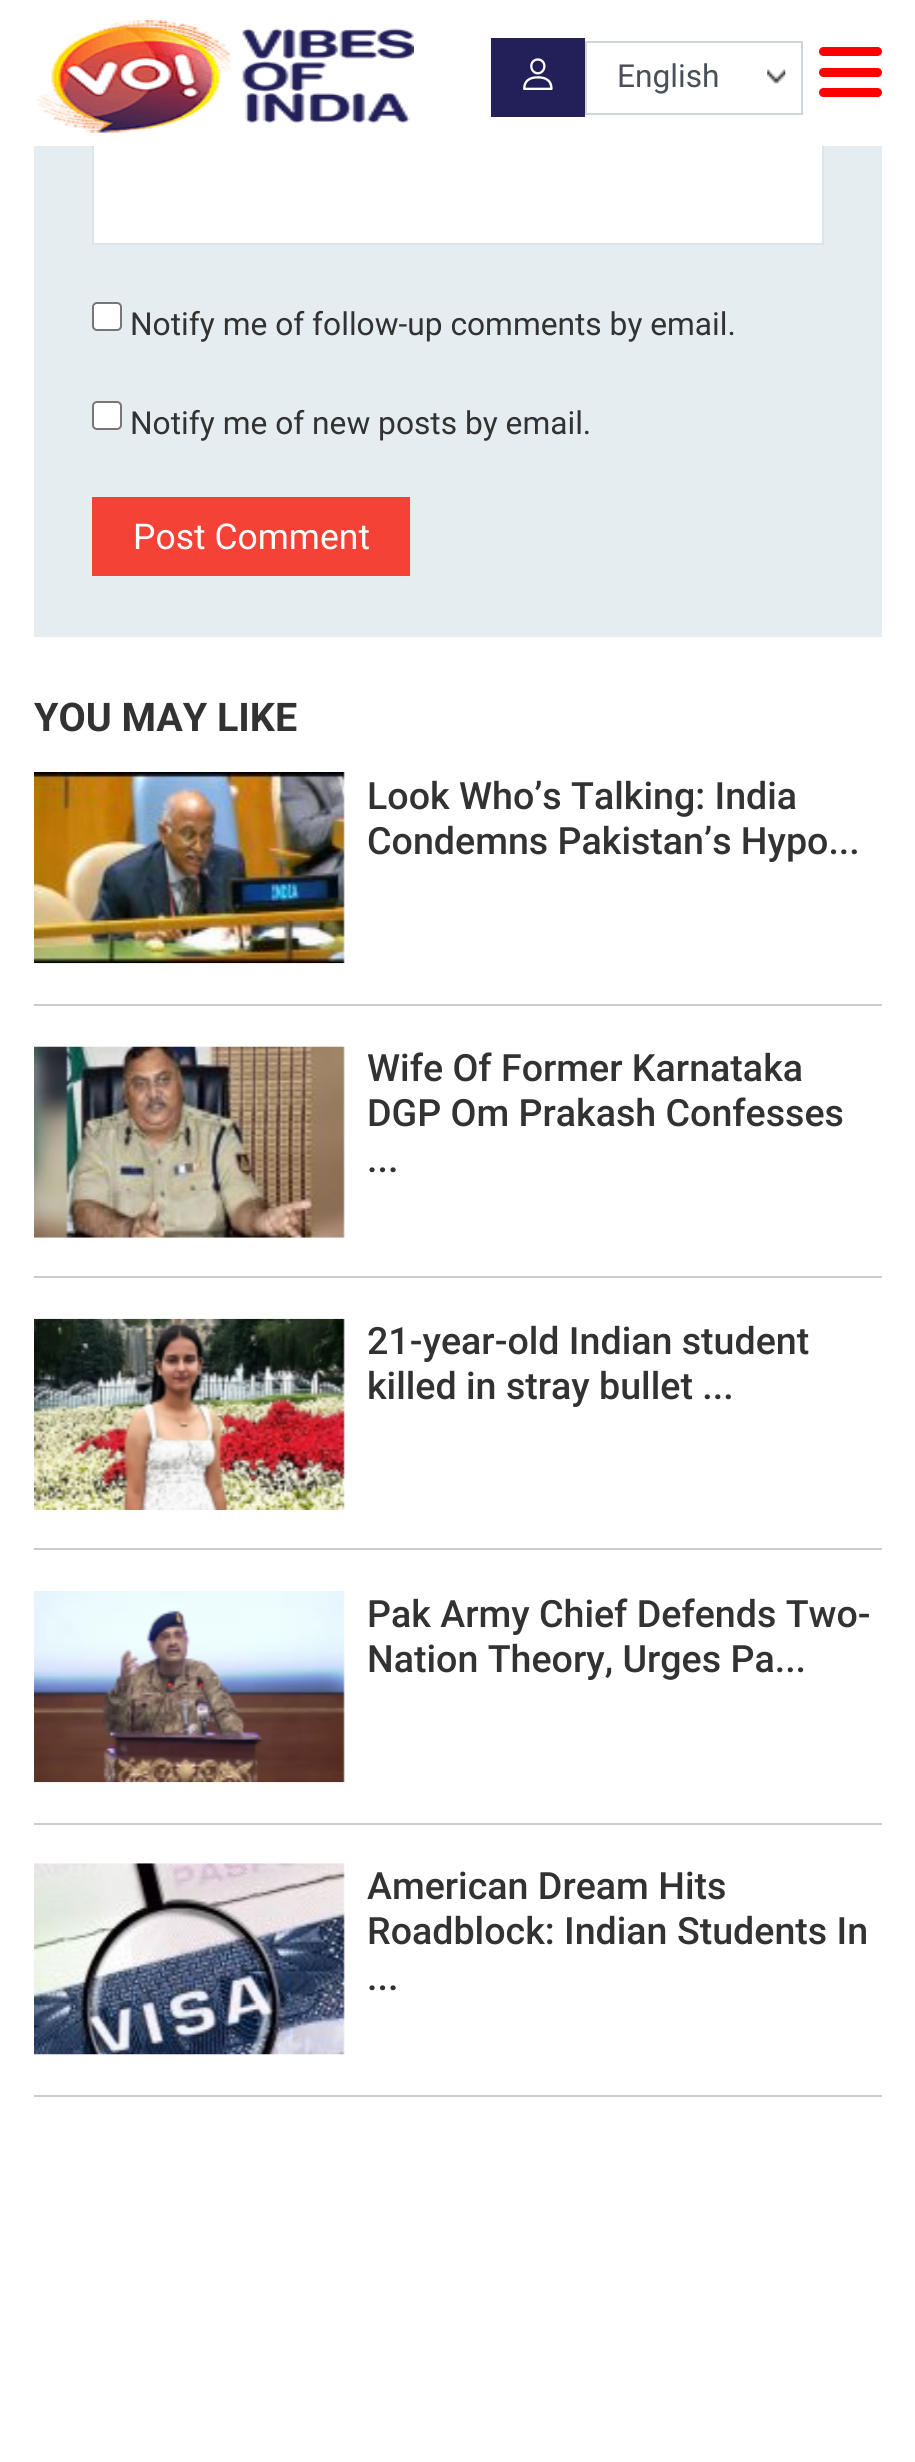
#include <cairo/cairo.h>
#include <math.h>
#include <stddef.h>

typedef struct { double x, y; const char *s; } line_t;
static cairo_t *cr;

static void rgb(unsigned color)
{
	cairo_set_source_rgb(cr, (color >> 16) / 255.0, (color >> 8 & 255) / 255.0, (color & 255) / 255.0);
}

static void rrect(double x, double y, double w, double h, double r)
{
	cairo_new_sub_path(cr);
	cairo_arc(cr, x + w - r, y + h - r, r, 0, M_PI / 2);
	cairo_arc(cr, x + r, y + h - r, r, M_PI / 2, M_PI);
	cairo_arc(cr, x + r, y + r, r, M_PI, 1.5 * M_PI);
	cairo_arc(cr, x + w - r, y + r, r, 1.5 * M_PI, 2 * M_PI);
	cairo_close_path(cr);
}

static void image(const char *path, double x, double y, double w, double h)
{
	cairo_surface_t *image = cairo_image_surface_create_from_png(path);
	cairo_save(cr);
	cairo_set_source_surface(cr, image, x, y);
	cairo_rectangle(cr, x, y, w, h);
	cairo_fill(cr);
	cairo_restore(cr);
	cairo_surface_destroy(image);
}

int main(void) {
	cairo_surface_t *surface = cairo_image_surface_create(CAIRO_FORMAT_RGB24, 915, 2462);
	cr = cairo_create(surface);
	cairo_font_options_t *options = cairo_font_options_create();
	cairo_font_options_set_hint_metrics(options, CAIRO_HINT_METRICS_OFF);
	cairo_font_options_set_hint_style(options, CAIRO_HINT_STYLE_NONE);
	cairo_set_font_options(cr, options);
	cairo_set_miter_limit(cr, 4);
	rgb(0xffffff);
	cairo_paint(cr);
	rgb(0xe6edf0);
	cairo_rectangle(cr, 34, 146, 848, 491);
	cairo_fill(cr);
	rgb(0xffffff);
	cairo_rectangle(cr, 94, 146, 728, 97);
	cairo_fill(cr);
	cairo_rectangle(cr, 93, -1, 730, 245);
	rgb(0xdbe4e9);
	cairo_stroke(cr);
	rgb(0xffffff);
	cairo_rectangle(cr, 92, 0, 732, 146);
	cairo_fill(cr);
	image("img/1.png", 37, 20, 377, 113);
	rgb(0x231f59);
	cairo_rectangle(cr, 491, 38, 94, 79);
	cairo_fill(cr);
	image("img/2.png", 523, 58, 30, 32);
	image("img/3.png", 767, 69, 19, 15);
	cairo_rectangle(cr, 586, 42, 216, 72);
	rgb(0xced4da);
	cairo_stroke(cr);
	rgb(0xff0000);
	rrect(819, 47, 63, 9, 4.5);
	cairo_fill(cr);
	rrect(819, 68, 63, 9, 4.5);
	cairo_fill(cr);
	rrect(819, 88, 63, 9, 4.5);
	cairo_fill(cr);
	rgb(0xffffff);
	rrect(93, 303, 28, 27, 4);
	cairo_fill_preserve(cr);
	rgb(0x767676);
	cairo_stroke(cr);
	rgb(0xffffff);
	rrect(93, 402, 28, 27, 4);
	cairo_fill_preserve(cr);
	rgb(0x767676);
	cairo_stroke(cr);
	rgb(0xf44236);
	cairo_rectangle(cr, 92, 497, 318, 79);
	cairo_fill(cr);
	rgb(0xcccccc);
	cairo_rectangle(cr, 34, 1004, 848, 2);
	cairo_fill(cr);
	image("img/4.png", 34, 772, 311, 192);
	cairo_rectangle(cr, 34, 1276, 848, 2);
	cairo_fill(cr);
	image("img/5.png", 34, 1046, 311, 192);
	cairo_rectangle(cr, 34, 1548, 848, 2);
	cairo_fill(cr);
	image("img/6.png", 34, 1318, 311, 192);
	cairo_rectangle(cr, 34, 1823, 848, 2);
	cairo_fill(cr);
	image("img/7.png", 34, 1591, 311, 192);
	cairo_rectangle(cr, 34, 2095, 848, 2);
	cairo_fill(cr);
	image("img/8.png", 34, 1863, 311, 192);
	cairo_select_font_face(cr, "Roboto", CAIRO_FONT_SLANT_NORMAL, CAIRO_FONT_WEIGHT_NORMAL);
	cairo_set_font_size(cr, 31.7);
	rgb(0x495057);
	cairo_move_to(cr, 617, 87);
	cairo_show_text(cr, "English");
	rgb(0x323232);
	cairo_move_to(cr, 130, 335);
	cairo_show_text(cr, "Notify me of follow-up comments by email.");
	cairo_move_to(cr, 130, 434);
	cairo_show_text(cr, "Notify me of new posts by email.");
	cairo_set_font_size(cr, 35.5);
	rgb(0xffffff);
	cairo_move_to(cr, 133, 549);
	cairo_show_text(cr, "Post Comment");
	cairo_select_font_face(cr, "Roboto", CAIRO_FONT_SLANT_NORMAL, CAIRO_FONT_WEIGHT_BOLD);
	cairo_set_font_size(cr, 39.5);
	rgb(0x323232);
	cairo_move_to(cr, 34, 731);
	cairo_show_text(cr, "YOU MAY LIKE");
	cairo_select_font_face(cr, "Roboto Medium", CAIRO_FONT_SLANT_NORMAL, CAIRO_FONT_WEIGHT_NORMAL);
	cairo_set_font_size(cr, 37.6);
	{
		static const line_t items[] = {
			{367, 809, "Look Who’s Talking: India"},
			{367, 854, "Condemns Pakistan’s Hypo..."},
			{367, 1081, "Wife Of Former Karnataka"},
			{367, 1126, "DGP Om Prakash Confesses"},
			{367, 1172, "..."},
			{367, 1354, "21-year-old Indian student"},
			{367, 1399, "killed in stray bullet ..."},
			{367, 1627, "Pak Army Chief Defends Two-"},
			{367, 1672, "Nation Theory, Urges Pa..."},
			{367, 1899, "American Dream Hits"},
			{367, 1944, "Roadblock: Indian Students In"},
			{367, 1990, "..."},
		};
		for (size_t i = 0; i < sizeof items / sizeof *items; i++) {
			cairo_move_to(cr, items[i].x, items[i].y);
			cairo_show_text(cr, items[i].s);
		}
	}
	cairo_surface_write_to_png(surface, "page.png");
	cairo_font_options_destroy(options);
	cairo_destroy(cr);
	cairo_surface_destroy(surface);
	return 0;
}
